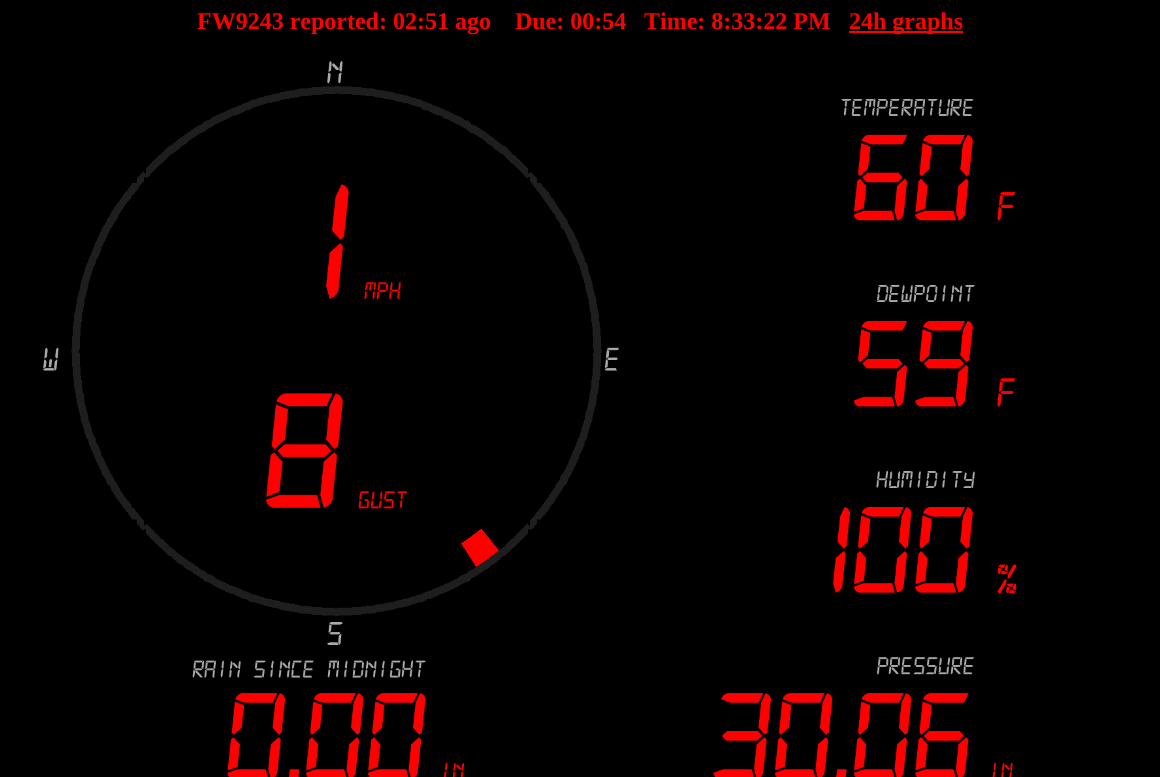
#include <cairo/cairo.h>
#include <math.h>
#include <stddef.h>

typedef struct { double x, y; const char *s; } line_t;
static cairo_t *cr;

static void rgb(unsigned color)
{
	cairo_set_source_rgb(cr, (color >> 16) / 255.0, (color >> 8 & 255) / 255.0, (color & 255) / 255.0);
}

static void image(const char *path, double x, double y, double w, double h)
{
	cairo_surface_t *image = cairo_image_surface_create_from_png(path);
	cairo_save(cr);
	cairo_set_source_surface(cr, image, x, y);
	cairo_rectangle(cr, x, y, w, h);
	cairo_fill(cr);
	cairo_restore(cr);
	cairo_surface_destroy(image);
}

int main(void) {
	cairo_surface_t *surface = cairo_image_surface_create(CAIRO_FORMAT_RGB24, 1160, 777);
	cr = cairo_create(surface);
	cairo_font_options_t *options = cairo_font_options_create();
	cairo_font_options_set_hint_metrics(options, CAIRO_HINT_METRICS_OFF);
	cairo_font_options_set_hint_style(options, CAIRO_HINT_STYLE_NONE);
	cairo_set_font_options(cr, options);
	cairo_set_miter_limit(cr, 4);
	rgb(0x000000);
	cairo_paint(cr);
	rgb(0xff0000);
	cairo_rectangle(cr, 849, 31, 114, 2);
	cairo_fill(cr);
	image("img/1.png", 43, 61, 974, 716);
	cairo_select_font_face(cr, "Liberation Serif", CAIRO_FONT_SLANT_NORMAL, CAIRO_FONT_WEIGHT_BOLD);
	cairo_set_font_size(cr, 24);
	{
		static const line_t items[] = {
			{197, 29, "FW9243 reported: 02:51 ago    Due: 00:54"},
			{644, 29, "Time: 8:33:22 PM"},
			{849, 29, "24h graphs"},
		};
		for (size_t i = 0; i < sizeof items / sizeof *items; i++) {
			cairo_move_to(cr, items[i].x, items[i].y);
			cairo_show_text(cr, items[i].s);
		}
	}
	cairo_surface_write_to_png(surface, "page.png");
	cairo_font_options_destroy(options);
	cairo_destroy(cr);
	cairo_surface_destroy(surface);
	return 0;
}
